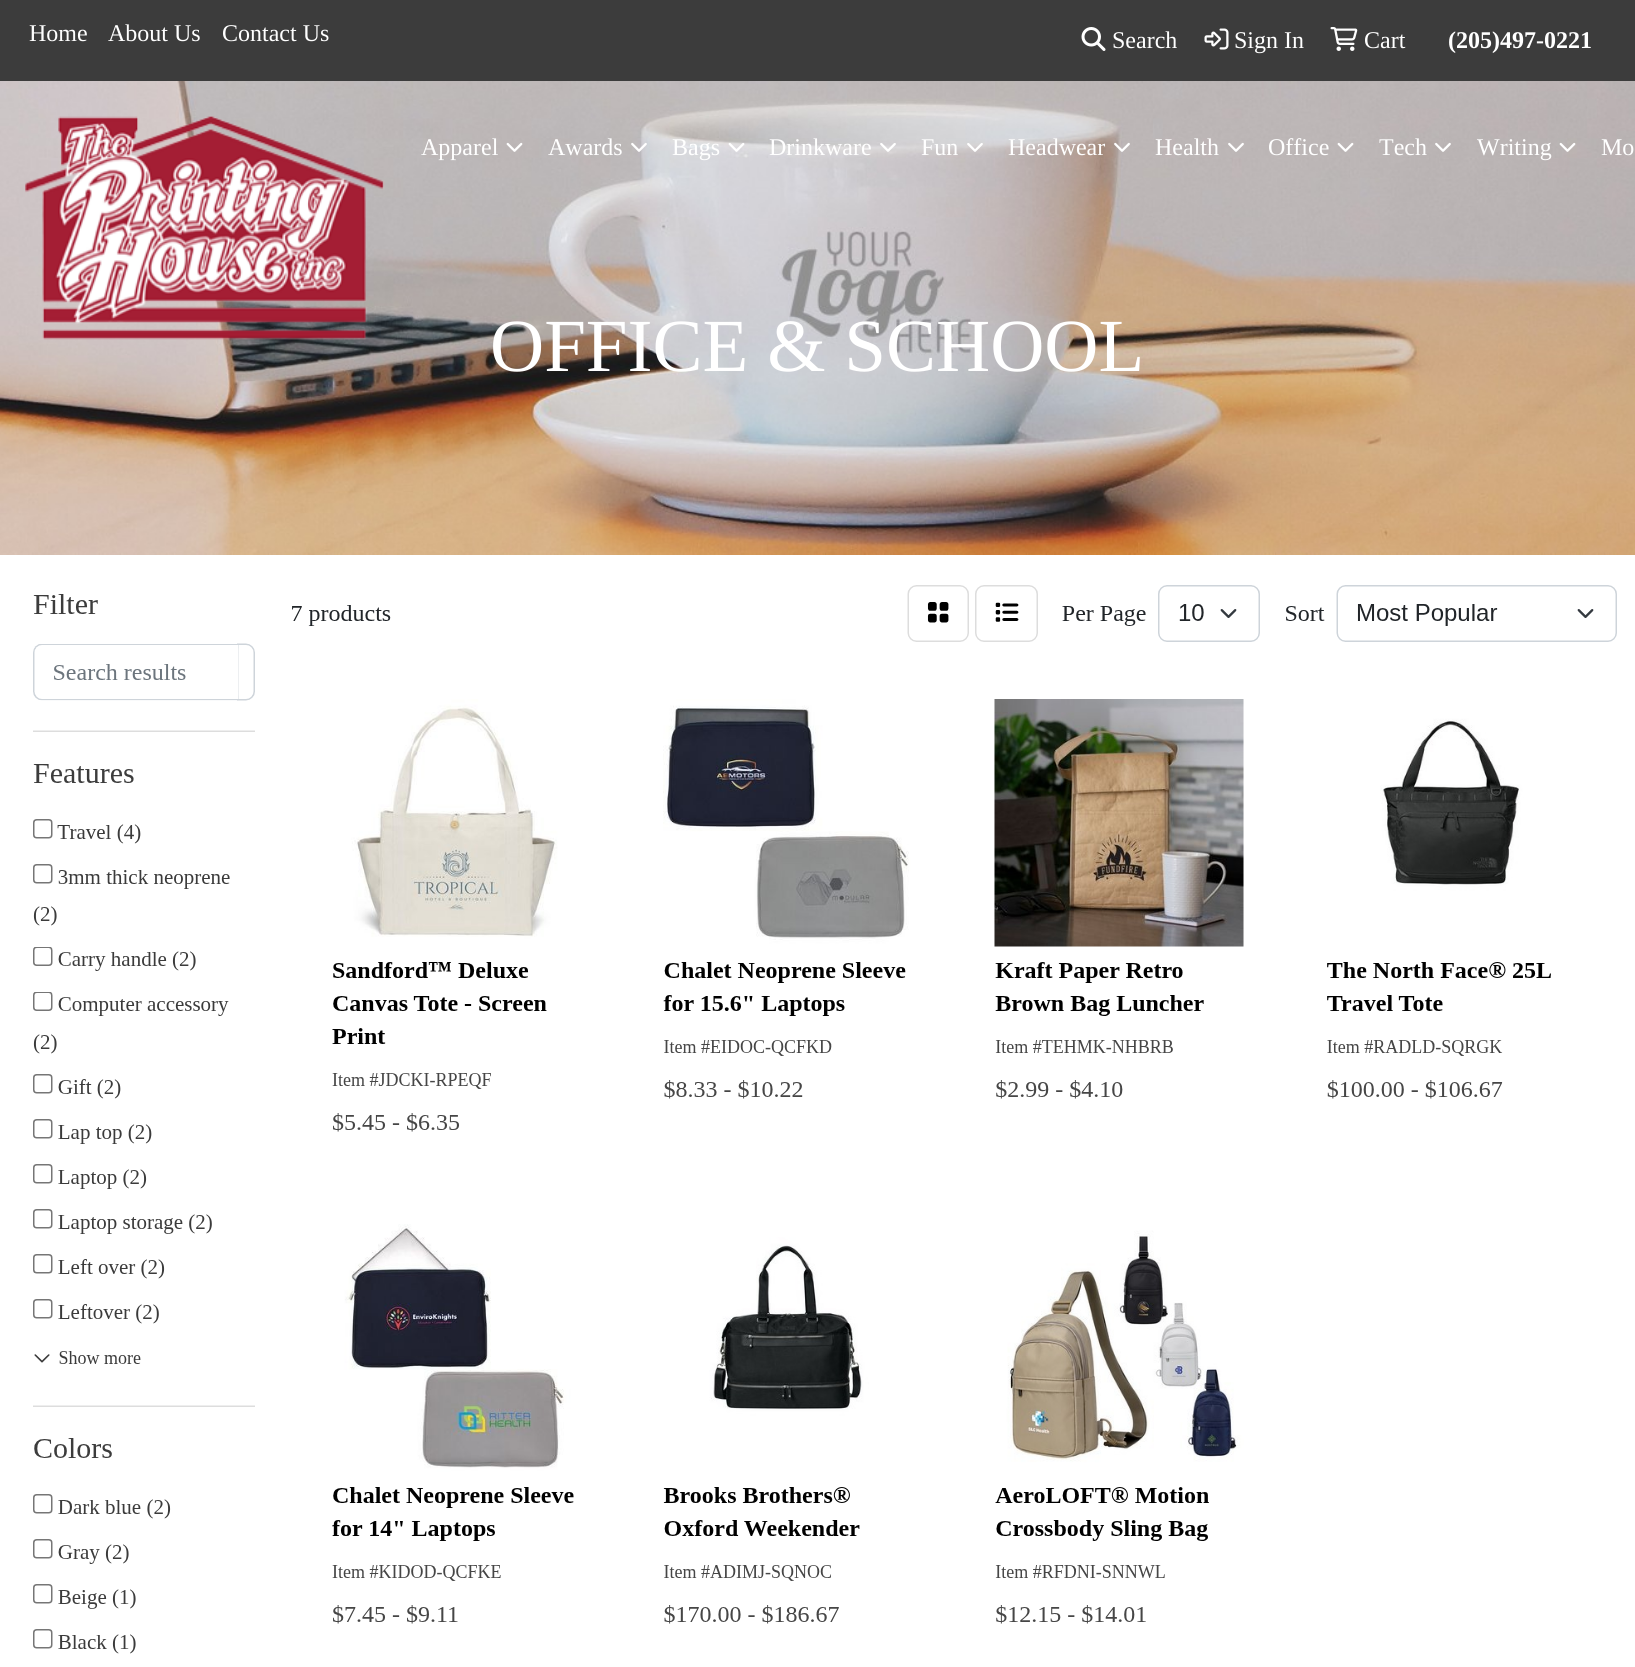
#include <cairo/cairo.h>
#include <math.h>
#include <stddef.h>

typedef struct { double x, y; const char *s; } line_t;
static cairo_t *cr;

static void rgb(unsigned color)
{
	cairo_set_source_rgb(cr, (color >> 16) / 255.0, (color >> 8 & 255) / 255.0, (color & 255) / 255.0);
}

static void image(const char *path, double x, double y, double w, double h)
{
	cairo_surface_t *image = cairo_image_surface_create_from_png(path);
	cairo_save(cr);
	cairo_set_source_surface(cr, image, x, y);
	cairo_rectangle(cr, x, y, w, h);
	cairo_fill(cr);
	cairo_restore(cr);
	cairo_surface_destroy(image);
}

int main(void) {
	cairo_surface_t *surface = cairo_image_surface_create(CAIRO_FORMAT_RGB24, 1635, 1667);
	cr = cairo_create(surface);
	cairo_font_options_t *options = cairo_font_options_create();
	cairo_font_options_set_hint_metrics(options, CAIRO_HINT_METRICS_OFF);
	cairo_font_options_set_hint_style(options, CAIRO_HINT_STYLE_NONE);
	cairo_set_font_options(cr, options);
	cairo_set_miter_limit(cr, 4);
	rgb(0xffffff);
	cairo_paint(cr);
	rgb(0x3c3c3c);
	cairo_rectangle(cr, 0, 0, 1635, 81);
	cairo_fill(cr);
	image("img/1.png", 1081, 27, 25, 24);
	image("img/2.png", 1204, 28, 25, 22);
	image("img/3.png", 1330, 27, 28, 24);
	image("img/15.png", 0, 81, 1635, 474);
	image("img/4.png", 25, 115, 360, 225);
	image("img/5.png", 506, 142, 17, 10);
	image("img/6.png", 631, 142, 16, 10);
	image("img/7.png", 728, 142, 17, 10);
	image("img/8.png", 880, 143, 16, 9);
	image("img/9.png", 967, 143, 16, 9);
	image("img/10.png", 1114, 142, 16, 10);
	image("img/11.png", 1228, 142, 16, 10);
	image("img/12.png", 1337, 142, 17, 10);
	image("img/13.png", 1435, 142, 16, 10);
	image("img/14.png", 1559, 142, 17, 10);
	image("img/16.png", 33, 585, 1584, 1069);
	cairo_select_font_face(cr, "Liberation Serif", CAIRO_FONT_SLANT_NORMAL, CAIRO_FONT_WEIGHT_NORMAL);
	cairo_set_font_size(cr, 24);
	rgb(0xffffff);
	{
		static const line_t items[] = {
			{29, 41, "Home"},
			{108, 41, "About Us"},
			{222, 41, "Contact Us"},
			{1112, 48, "Search"},
			{1234, 48, "Sign In"},
			{1364, 48, "Cart"},
		};
		for (size_t i = 0; i < sizeof items / sizeof *items; i++) {
			cairo_move_to(cr, items[i].x, items[i].y);
			cairo_show_text(cr, items[i].s);
		}
	}
	cairo_select_font_face(cr, "Liberation Serif", CAIRO_FONT_SLANT_NORMAL, CAIRO_FONT_WEIGHT_BOLD);
	cairo_move_to(cr, 1448, 48);
	cairo_show_text(cr, "(205)497-0221");
	cairo_select_font_face(cr, "Liberation Serif", CAIRO_FONT_SLANT_NORMAL, CAIRO_FONT_WEIGHT_NORMAL);
	{
		static const line_t items[] = {
			{421, 155, "Apparel"},
			{548, 155, "Awards"},
			{672, 155, "Bags"},
			{769, 155, "Drinkware"},
			{921, 155, "Fun"},
			{1008, 155, "Headwear"},
			{1155, 155, "Health"},
			{1268, 155, "Office"},
			{1379, 155, "Tech"},
			{1477, 155, "Writing"},
			{1601, 155, "Mo"},
		};
		for (size_t i = 0; i < sizeof items / sizeof *items; i++) {
			cairo_move_to(cr, items[i].x, items[i].y);
			cairo_show_text(cr, items[i].s);
		}
	}
	cairo_set_font_size(cr, 75);
	cairo_move_to(cr, 490, 371);
	cairo_show_text(cr, "OFFICE & SCHOOL");
	cairo_surface_write_to_png(surface, "page.png");
	cairo_font_options_destroy(options);
	cairo_destroy(cr);
	cairo_surface_destroy(surface);
	return 0;
}
